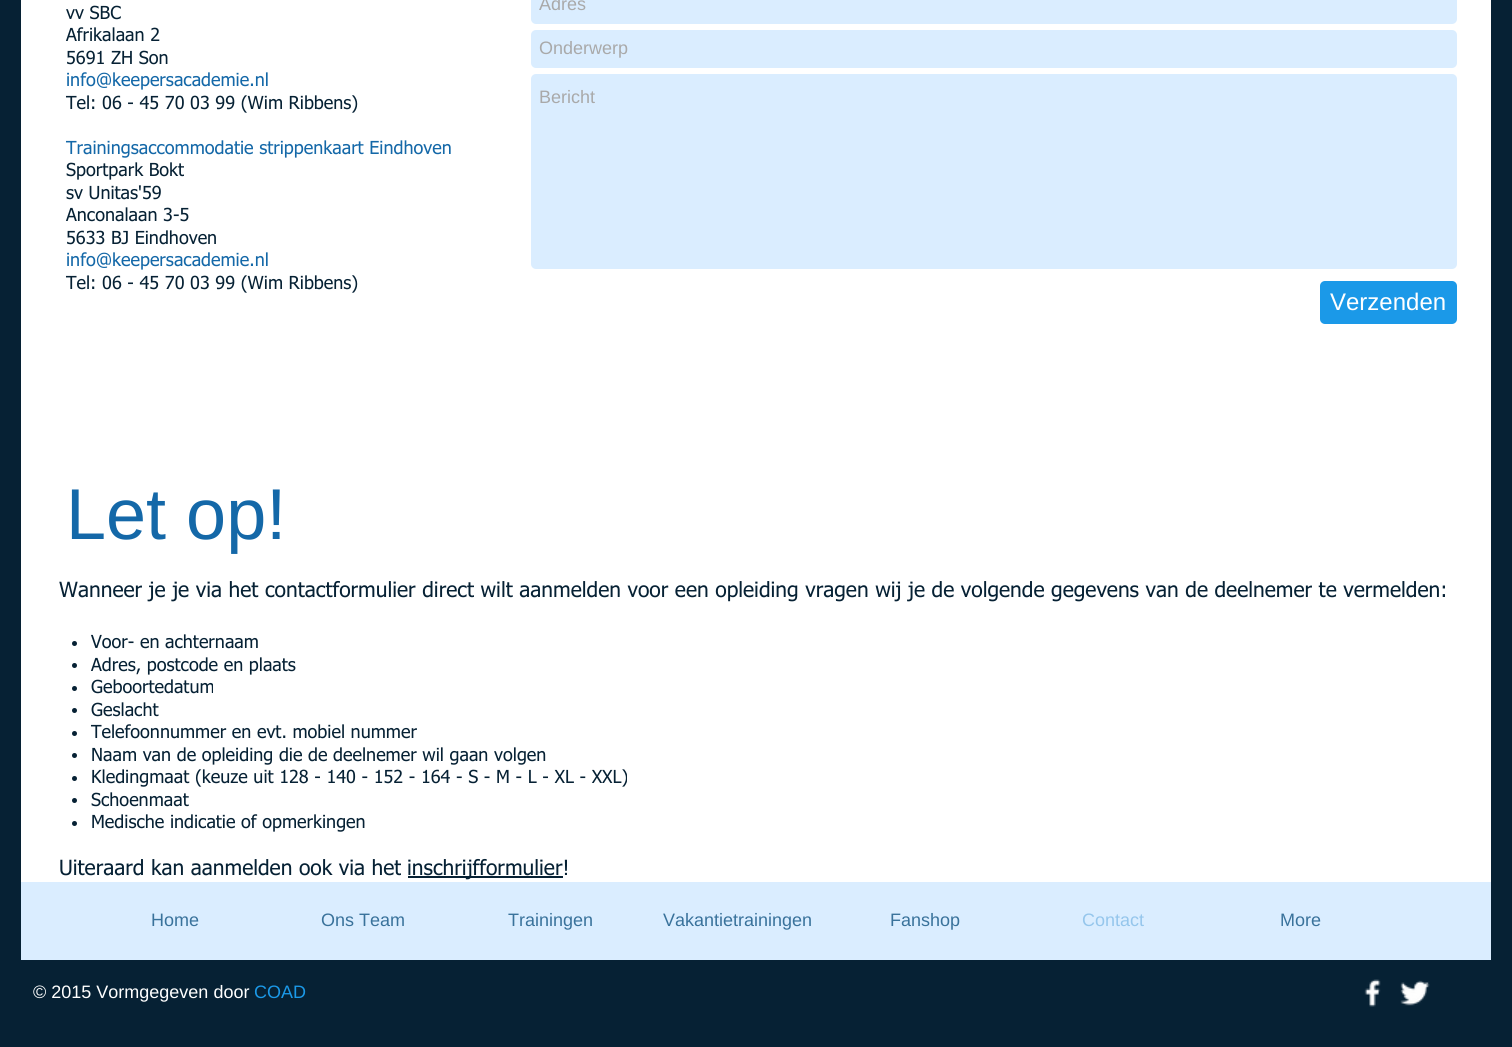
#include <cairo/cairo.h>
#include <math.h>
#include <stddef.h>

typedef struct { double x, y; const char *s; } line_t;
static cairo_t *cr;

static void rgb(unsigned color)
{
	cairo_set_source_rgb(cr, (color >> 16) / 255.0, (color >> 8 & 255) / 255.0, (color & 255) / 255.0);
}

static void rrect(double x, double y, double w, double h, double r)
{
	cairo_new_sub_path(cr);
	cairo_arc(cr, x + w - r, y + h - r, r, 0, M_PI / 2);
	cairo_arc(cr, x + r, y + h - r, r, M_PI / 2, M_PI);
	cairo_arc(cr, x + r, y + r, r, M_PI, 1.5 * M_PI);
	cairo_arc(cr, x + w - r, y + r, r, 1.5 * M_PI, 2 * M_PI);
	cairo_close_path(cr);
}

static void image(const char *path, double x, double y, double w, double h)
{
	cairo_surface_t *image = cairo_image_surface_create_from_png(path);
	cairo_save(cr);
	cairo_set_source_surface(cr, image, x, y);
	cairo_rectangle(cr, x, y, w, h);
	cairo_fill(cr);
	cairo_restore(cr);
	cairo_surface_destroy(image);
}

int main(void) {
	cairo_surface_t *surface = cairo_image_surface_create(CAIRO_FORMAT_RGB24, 1512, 1047);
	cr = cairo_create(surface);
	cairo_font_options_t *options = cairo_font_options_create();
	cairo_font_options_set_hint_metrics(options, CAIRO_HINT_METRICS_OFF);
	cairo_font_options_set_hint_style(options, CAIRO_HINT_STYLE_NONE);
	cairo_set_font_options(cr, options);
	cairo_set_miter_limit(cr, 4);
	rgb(0x062134);
	cairo_paint(cr);
	rgb(0xffffff);
	cairo_rectangle(cr, 21, 0, 1470, 882);
	cairo_fill(cr);
	rgb(0xdaedff);
	rrect(531, -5, 926, 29, 5);
	cairo_fill(cr);
	rrect(531, 30, 926, 38, 5);
	cairo_fill(cr);
	rrect(531, 74, 926, 195, 5);
	cairo_fill(cr);
	rgb(0x1b99e8);
	rrect(1320, 281, 137, 43, 5);
	cairo_fill(cr);
	rgb(0x062134);
	cairo_arc(cr, 74.5, 643.5, 2.5, 0, 2 * M_PI);
	cairo_fill(cr);
	cairo_arc(cr, 74.5, 665.5, 2.5, 0, 2 * M_PI);
	cairo_fill(cr);
	cairo_arc(cr, 74.5, 688.5, 2.5, 0, 2 * M_PI);
	cairo_fill(cr);
	cairo_arc(cr, 74.5, 710.5, 2.5, 0, 2 * M_PI);
	cairo_fill(cr);
	cairo_arc(cr, 74.5, 733.5, 2.5, 0, 2 * M_PI);
	cairo_fill(cr);
	cairo_arc(cr, 74.5, 755.5, 2.5, 0, 2 * M_PI);
	cairo_fill(cr);
	cairo_arc(cr, 74.5, 778.5, 2.5, 0, 2 * M_PI);
	cairo_fill(cr);
	cairo_arc(cr, 74.5, 800.5, 2.5, 0, 2 * M_PI);
	cairo_fill(cr);
	cairo_arc(cr, 74.5, 823.5, 2.5, 0, 2 * M_PI);
	cairo_fill(cr);
	cairo_rectangle(cr, 408, 876, 155, 2);
	cairo_fill(cr);
	rgb(0xdaedff);
	cairo_rectangle(cr, 21, 882, 1470, 78);
	cairo_fill(cr);
	image("img/1.png", 1364, 979, 17, 28);
	image("img/2.png", 1400, 980, 30, 26);
	cairo_select_font_face(cr, "tahoma", CAIRO_FONT_SLANT_NORMAL, CAIRO_FONT_WEIGHT_NORMAL);
	cairo_set_font_size(cr, 18);
	rgb(0x062134);
	{
		static const line_t items[] = {
			{66, 19, "vv SBC"},
			{66, 41, "Afrikalaan 2"},
			{66, 64, "5691 ZH Son"},
		};
		for (size_t i = 0; i < sizeof items / sizeof *items; i++) {
			cairo_move_to(cr, items[i].x, items[i].y);
			cairo_show_text(cr, items[i].s);
		}
	}
	rgb(0x1468a8);
	cairo_move_to(cr, 66, 86);
	cairo_show_text(cr, "info@keepersacademie.nl");
	rgb(0x062134);
	cairo_move_to(cr, 66, 109);
	cairo_show_text(cr, "Tel: 06 - 45 70 03 99 (Wim Ribbens)");
	rgb(0x1468a8);
	cairo_move_to(cr, 66, 154);
	cairo_show_text(cr, "Trainingsaccommodatie strippenkaart Eindhoven");
	rgb(0x062134);
	{
		static const line_t items[] = {
			{66, 176, "Sportpark Bokt"},
			{66, 199, "sv Unitas'59"},
			{66, 221, "Anconalaan 3-5"},
			{66, 244, "5633 BJ Eindhoven"},
		};
		for (size_t i = 0; i < sizeof items / sizeof *items; i++) {
			cairo_move_to(cr, items[i].x, items[i].y);
			cairo_show_text(cr, items[i].s);
		}
	}
	rgb(0x1468a8);
	cairo_move_to(cr, 66, 266);
	cairo_show_text(cr, "info@keepersacademie.nl");
	rgb(0x062134);
	cairo_move_to(cr, 66, 289);
	cairo_show_text(cr, "Tel: 06 - 45 70 03 99 (Wim Ribbens)");
	cairo_select_font_face(cr, "Liberation Sans", CAIRO_FONT_SLANT_NORMAL, CAIRO_FONT_WEIGHT_NORMAL);
	rgb(0xa9a9a9);
	{
		static const line_t items[] = {
			{539, 10, "Adres"},
			{539, 54, "Onderwerp"},
			{539, 103, "Bericht"},
		};
		for (size_t i = 0; i < sizeof items / sizeof *items; i++) {
			cairo_move_to(cr, items[i].x, items[i].y);
			cairo_show_text(cr, items[i].s);
		}
	}
	cairo_set_font_size(cr, 24);
	rgb(0xffffff);
	cairo_move_to(cr, 1330, 310);
	cairo_show_text(cr, "Verzenden");
	cairo_set_font_size(cr, 72);
	rgb(0x1468a8);
	cairo_move_to(cr, 66, 539);
	cairo_show_text(cr, "Let op!");
	cairo_select_font_face(cr, "tahoma", CAIRO_FONT_SLANT_NORMAL, CAIRO_FONT_WEIGHT_NORMAL);
	cairo_set_font_size(cr, 21);
	rgb(0x062134);
	cairo_move_to(cr, 59, 597);
	cairo_show_text(cr, "Wanneer je je via het contactformulier direct wilt aanmelden voor een opleiding vragen wij je de volgende gegevens van de deelnemer te vermelden:");
	cairo_set_font_size(cr, 18);
	{
		static const line_t items[] = {
			{91, 648, "Voor- en achternaam"},
			{91, 671, "Adres, postcode en plaats"},
			{91, 693, "Geboortedatum"},
			{91, 716, "Geslacht"},
			{91, 738, "Telefoonnummer en evt. mobiel nummer"},
			{91, 761, "Naam van de opleiding die de deelnemer wil gaan volgen"},
			{91, 783, "Kledingmaat (keuze uit 128 - 140 - 152 - 164 - S - M - L - XL - XXL)"},
			{91, 806, "Schoenmaat"},
			{91, 828, "Medische indicatie of opmerkingen"},
		};
		for (size_t i = 0; i < sizeof items / sizeof *items; i++) {
			cairo_move_to(cr, items[i].x, items[i].y);
			cairo_show_text(cr, items[i].s);
		}
	}
	cairo_set_font_size(cr, 21);
	cairo_move_to(cr, 59, 875);
	cairo_show_text(cr, "Uiteraard kan aanmelden ook via het");
	cairo_move_to(cr, 407, 875);
	cairo_show_text(cr, "inschrijfformulier!");
	cairo_select_font_face(cr, "Liberation Sans", CAIRO_FONT_SLANT_NORMAL, CAIRO_FONT_WEIGHT_NORMAL);
	cairo_set_font_size(cr, 18);
	rgb(0x39729b);
	{
		static const line_t items[] = {
			{151, 926, "Home"},
			{321, 926, "Ons Team"},
			{508, 926, "Trainingen"},
			{663, 926, "Vakantietrainingen"},
			{890, 926, "Fanshop"},
		};
		for (size_t i = 0; i < sizeof items / sizeof *items; i++) {
			cairo_move_to(cr, items[i].x, items[i].y);
			cairo_show_text(cr, items[i].s);
		}
	}
	rgb(0x95c6ec);
	cairo_move_to(cr, 1082, 926);
	cairo_show_text(cr, "Contact");
	rgb(0x39729b);
	cairo_move_to(cr, 1280, 926);
	cairo_show_text(cr, "More");
	rgb(0xffffff);
	cairo_move_to(cr, 33, 998);
	cairo_show_text(cr, "© 2015 Vormgegeven door");
	rgb(0x1b99e8);
	cairo_move_to(cr, 254, 998);
	cairo_show_text(cr, "COAD");
	cairo_surface_write_to_png(surface, "page.png");
	cairo_font_options_destroy(options);
	cairo_destroy(cr);
	cairo_surface_destroy(surface);
	return 0;
}
